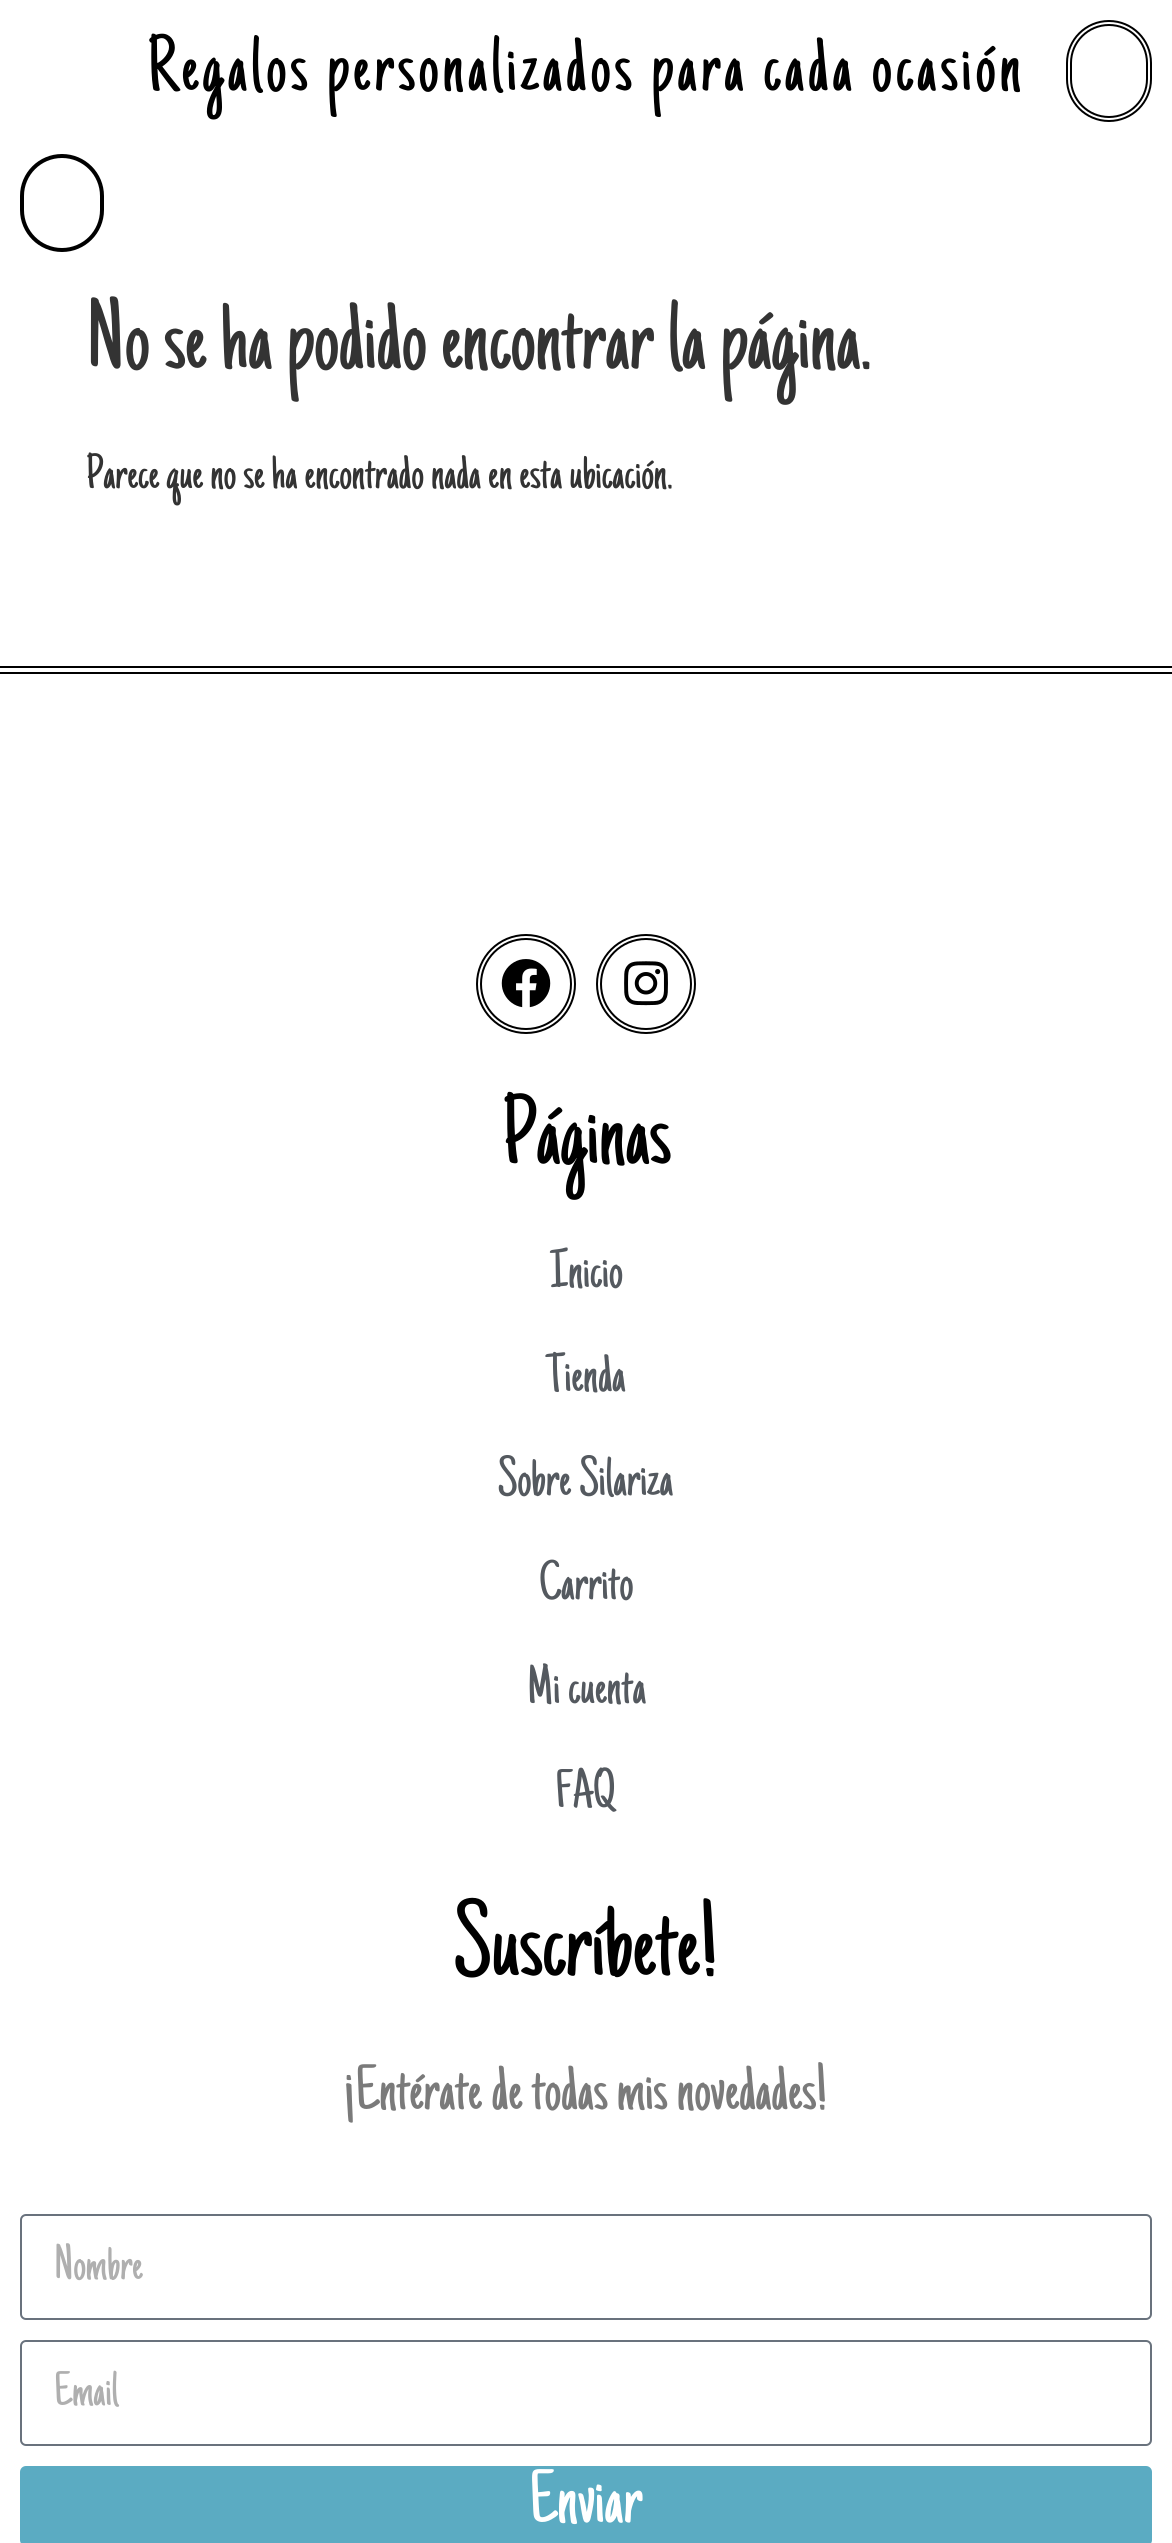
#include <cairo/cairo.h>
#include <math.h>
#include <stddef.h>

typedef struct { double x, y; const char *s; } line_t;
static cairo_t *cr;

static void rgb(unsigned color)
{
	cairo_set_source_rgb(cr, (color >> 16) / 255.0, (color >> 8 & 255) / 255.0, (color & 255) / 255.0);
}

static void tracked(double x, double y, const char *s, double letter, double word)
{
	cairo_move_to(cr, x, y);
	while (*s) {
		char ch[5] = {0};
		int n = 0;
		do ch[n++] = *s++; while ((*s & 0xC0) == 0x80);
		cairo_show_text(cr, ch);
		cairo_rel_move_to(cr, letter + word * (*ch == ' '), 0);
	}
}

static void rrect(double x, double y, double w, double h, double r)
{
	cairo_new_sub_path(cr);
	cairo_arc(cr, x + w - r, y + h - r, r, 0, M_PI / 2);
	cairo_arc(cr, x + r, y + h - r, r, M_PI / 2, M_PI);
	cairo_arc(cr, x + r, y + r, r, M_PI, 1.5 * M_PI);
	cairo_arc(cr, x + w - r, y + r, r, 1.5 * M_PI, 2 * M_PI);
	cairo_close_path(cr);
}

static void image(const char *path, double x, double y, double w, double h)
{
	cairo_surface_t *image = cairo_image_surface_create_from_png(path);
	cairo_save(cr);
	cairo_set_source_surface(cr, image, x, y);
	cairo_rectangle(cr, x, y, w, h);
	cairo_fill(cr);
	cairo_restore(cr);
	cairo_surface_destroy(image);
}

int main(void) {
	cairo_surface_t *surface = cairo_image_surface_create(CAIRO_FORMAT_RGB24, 1172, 2543);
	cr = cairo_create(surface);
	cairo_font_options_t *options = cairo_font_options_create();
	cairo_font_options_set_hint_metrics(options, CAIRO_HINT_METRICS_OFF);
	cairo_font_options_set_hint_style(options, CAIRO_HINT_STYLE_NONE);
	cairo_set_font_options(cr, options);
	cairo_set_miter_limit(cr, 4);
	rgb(0xffffff);
	cairo_paint(cr);
	rrect(22, 156, 80, 94, 40);
	rgb(0x000000);
	cairo_set_line_width(cr, 4);
	cairo_stroke(cr);
	rrect(1067, 21, 84, 100, 42);
	cairo_set_line_width(cr, 2);
	cairo_stroke(cr);
	rrect(1071, 25, 76, 92, 38);
	cairo_stroke(cr);
	cairo_rectangle(cr, 0, 666, 1172, 2);
	cairo_fill(cr);
	cairo_rectangle(cr, 0, 672, 1172, 2);
	cairo_fill(cr);
	cairo_arc(cr, 526, 984, 49, 0, 2 * M_PI);
	cairo_stroke(cr);
	cairo_arc(cr, 526, 984, 45, 0, 2 * M_PI);
	cairo_stroke(cr);
	image("img/1.png", 501, 959, 50, 49);
	cairo_arc(cr, 646, 984, 49, 0, 2 * M_PI);
	cairo_stroke(cr);
	cairo_arc(cr, 646, 984, 45, 0, 2 * M_PI);
	cairo_stroke(cr);
	image("img/2.png", 624, 961, 44, 45);
	rrect(21, 2215, 1130, 104, 5);
	rgb(0x69727d);
	cairo_stroke(cr);
	rrect(21, 2341, 1130, 104, 5);
	cairo_stroke(cr);
	rgb(0x5babc2);
	rrect(20, 2466, 1132, 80, 6);
	cairo_fill(cr);
	cairo_select_font_face(cr, "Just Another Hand", CAIRO_FONT_SLANT_NORMAL, CAIRO_FONT_WEIGHT_NORMAL);
	cairo_set_font_size(cr, 80);
	rgb(0x000000);
	tracked(147, 90, "Regalos personalizados para cada ocasión", 4.2, 0);
	cairo_set_font_size(cr, 100);
	rgb(0x333333);
	cairo_move_to(cr, 86, 368);
	cairo_show_text(cr, "No se ha podido encontrar la página.");
	cairo_set_font_size(cr, 50);
	cairo_move_to(cr, 86, 488);
	cairo_show_text(cr, "Parece que no se ha encontrado nada en esta ubicación.");
	cairo_set_font_size(cr, 100);
	rgb(0x000000);
	cairo_move_to(cr, 502, 1163);
	cairo_show_text(cr, "Páginas");
	cairo_set_font_size(cr, 56);
	rgb(0x54595f);
	{
		static const line_t items[] = {
			{550, 1287, "Inicio"},
			{546, 1391, "Tienda"},
			{498, 1495, "Sobre Silariza"},
			{539, 1599, "Carrito"},
			{527, 1703, "Mi cuenta"},
			{555, 1807, "FAQ"},
		};
		for (size_t i = 0; i < sizeof items / sizeof *items; i++) {
			cairo_move_to(cr, items[i].x, items[i].y);
			cairo_show_text(cr, items[i].s);
		}
	}
	cairo_set_font_size(cr, 108);
	rgb(0x000000);
	cairo_move_to(cr, 454, 1975);
	cairo_show_text(cr, "Suscríbete!");
	cairo_set_font_size(cr, 66);
	rgb(0x7a7a7a);
	cairo_move_to(cr, 344, 2109);
	cairo_show_text(cr, "¡Entérate de todas mis novedades!");
	cairo_set_font_size(cr, 50);
	rgb(0xafafaf);
	cairo_move_to(cr, 54, 2279);
	cairo_show_text(cr, "Nombre");
	cairo_move_to(cr, 54, 2405);
	cairo_show_text(cr, "Email");
	cairo_set_font_size(cr, 78);
	rgb(0xffffff);
	cairo_move_to(cr, 529, 2522);
	cairo_show_text(cr, "Enviar");
	cairo_surface_write_to_png(surface, "page.png");
	cairo_font_options_destroy(options);
	cairo_destroy(cr);
	cairo_surface_destroy(surface);
	return 0;
}
